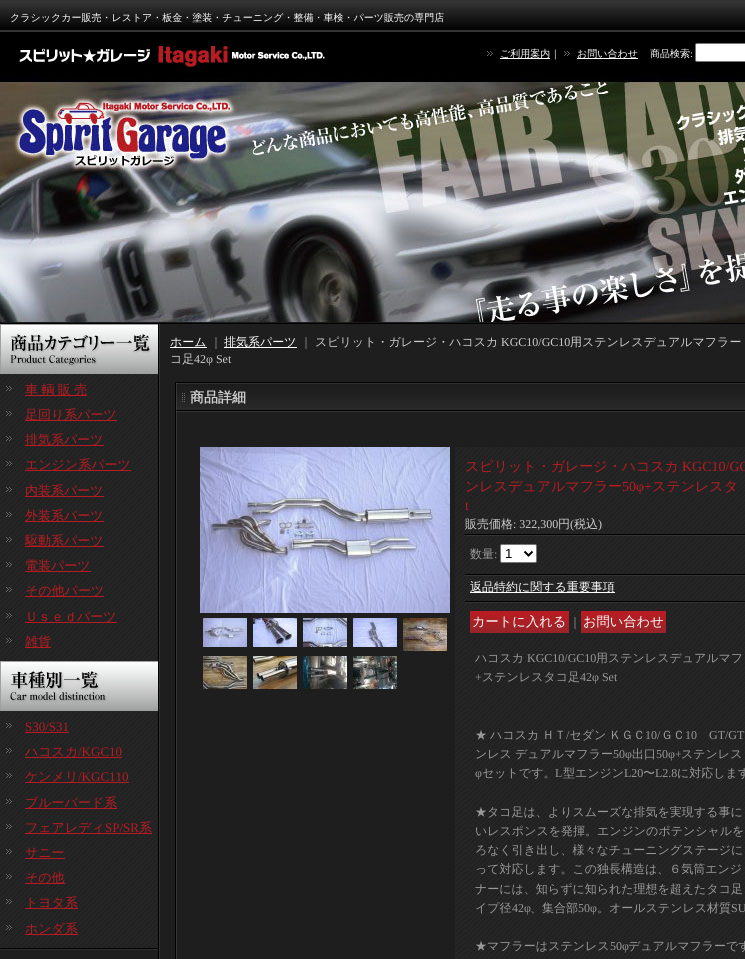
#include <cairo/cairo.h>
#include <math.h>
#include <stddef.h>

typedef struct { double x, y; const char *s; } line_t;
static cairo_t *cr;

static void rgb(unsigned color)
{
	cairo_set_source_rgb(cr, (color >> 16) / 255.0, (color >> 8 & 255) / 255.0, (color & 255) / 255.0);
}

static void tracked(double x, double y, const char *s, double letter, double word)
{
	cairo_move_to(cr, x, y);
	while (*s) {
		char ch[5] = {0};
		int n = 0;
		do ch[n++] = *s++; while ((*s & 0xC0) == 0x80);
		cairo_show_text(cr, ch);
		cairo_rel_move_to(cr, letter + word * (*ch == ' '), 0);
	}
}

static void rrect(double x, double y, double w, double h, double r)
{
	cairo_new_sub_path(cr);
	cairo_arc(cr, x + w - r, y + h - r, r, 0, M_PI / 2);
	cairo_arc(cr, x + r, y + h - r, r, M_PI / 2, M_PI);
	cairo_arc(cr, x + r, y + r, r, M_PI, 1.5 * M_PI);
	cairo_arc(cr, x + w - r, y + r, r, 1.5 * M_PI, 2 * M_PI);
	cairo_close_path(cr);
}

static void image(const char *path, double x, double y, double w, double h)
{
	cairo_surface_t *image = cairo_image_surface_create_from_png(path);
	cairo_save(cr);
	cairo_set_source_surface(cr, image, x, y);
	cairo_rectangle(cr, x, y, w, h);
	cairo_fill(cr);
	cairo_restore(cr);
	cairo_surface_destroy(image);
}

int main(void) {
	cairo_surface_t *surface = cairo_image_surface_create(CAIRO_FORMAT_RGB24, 745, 959);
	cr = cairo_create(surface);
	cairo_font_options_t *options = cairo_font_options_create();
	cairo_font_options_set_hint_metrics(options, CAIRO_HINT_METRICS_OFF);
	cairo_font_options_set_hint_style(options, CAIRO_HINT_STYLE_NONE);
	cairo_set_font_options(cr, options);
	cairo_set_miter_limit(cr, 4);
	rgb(0x1e1e1e);
	cairo_paint(cr);
	image("img/1.png", 0, 0, 745, 32);
	image("img/2.png", 0, 32, 745, 290);
	rgb(0x1a1a1a);
	cairo_rectangle(cr, 0, 322, 745, 1);
	cairo_fill(cr);
	image("img/3.png", 19, 46, 306, 21);
	image("img/4.png", 487, 51, 6, 5);
	rgb(0xffffff);
	cairo_rectangle(cr, 500, 58, 50, 1);
	cairo_fill(cr);
	image("img/4.png", 564, 51, 6, 5);
	cairo_rectangle(cr, 577, 58, 61, 1);
	cairo_fill(cr);
	rrect(695.5, 43.5, 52, 18, 1.5);
	cairo_fill_preserve(cr);
	rgb(0x767676);
	cairo_set_line_width(cr, 1);
	cairo_stroke(cr);
	rgb(0x000000);
	cairo_rectangle(cr, 0, 323, 745, 1);
	cairo_fill(cr);
	image("img/5.png", 158, 324, 2, 635);
	image("img/6.png", 0, 324, 158, 50);
	image("img/7.png", 0, 374, 158, 287);
	image("img/8.png", 6, 386, 6, 5);
	rgb(0xb81c22);
	cairo_rectangle(cr, 25, 395, 62, 1);
	cairo_fill(cr);
	image("img/8.png", 6, 411, 6, 5);
	cairo_rectangle(cr, 25, 420, 92, 1);
	cairo_fill(cr);
	image("img/8.png", 6, 436, 6, 5);
	cairo_rectangle(cr, 25, 445, 79, 1);
	cairo_fill(cr);
	image("img/8.png", 6, 461, 6, 5);
	cairo_rectangle(cr, 25, 470, 106, 1);
	cairo_fill(cr);
	image("img/9.png", 6, 487, 6, 5);
	cairo_rectangle(cr, 25, 496, 79, 1);
	cairo_fill(cr);
	image("img/9.png", 6, 512, 6, 5);
	cairo_rectangle(cr, 25, 521, 79, 1);
	cairo_fill(cr);
	image("img/9.png", 6, 537, 6, 5);
	cairo_rectangle(cr, 25, 546, 79, 1);
	cairo_fill(cr);
	image("img/9.png", 6, 562, 6, 5);
	cairo_rectangle(cr, 25, 571, 66, 1);
	cairo_fill(cr);
	image("img/9.png", 6, 587, 6, 5);
	cairo_rectangle(cr, 25, 596, 79, 1);
	cairo_fill(cr);
	image("img/10.png", 6, 613, 6, 5);
	cairo_rectangle(cr, 25, 622, 92, 1);
	cairo_fill(cr);
	image("img/10.png", 6, 638, 6, 5);
	cairo_rectangle(cr, 25, 647, 26, 1);
	cairo_fill(cr);
	image("img/11.png", 0, 661, 158, 50);
	image("img/12.png", 0, 711, 158, 237);
	image("img/8.png", 6, 723, 6, 5);
	cairo_rectangle(cr, 25, 732, 44, 1);
	cairo_fill(cr);
	image("img/8.png", 6, 748, 6, 5);
	cairo_rectangle(cr, 25, 757, 97, 1);
	cairo_fill(cr);
	image("img/8.png", 6, 773, 6, 5);
	cairo_rectangle(cr, 25, 782, 104, 1);
	cairo_fill(cr);
	image("img/9.png", 6, 799, 6, 5);
	cairo_rectangle(cr, 25, 808, 92, 1);
	cairo_fill(cr);
	image("img/9.png", 6, 824, 6, 5);
	cairo_rectangle(cr, 25, 833, 127, 1);
	cairo_fill(cr);
	image("img/9.png", 6, 849, 6, 5);
	cairo_rectangle(cr, 25, 858, 40, 1);
	cairo_fill(cr);
	image("img/9.png", 6, 874, 6, 5);
	cairo_rectangle(cr, 25, 883, 40, 1);
	cairo_fill(cr);
	image("img/9.png", 6, 899, 6, 5);
	cairo_rectangle(cr, 25, 908, 53, 1);
	cairo_fill(cr);
	image("img/10.png", 6, 925, 6, 5);
	cairo_rectangle(cr, 25, 934, 53, 1);
	cairo_fill(cr);
	image("img/13.png", 0, 948, 158, 2);
	rgb(0xffffff);
	cairo_rectangle(cr, 170, 347, 37, 1);
	cairo_fill(cr);
	cairo_rectangle(cr, 224, 347, 73, 1);
	cairo_fill(cr);
	image("img/14.png", 175, 382, 570, 30);
	image("img/15.png", 175, 412, 2, 547);
	image("img/16.png", 200, 447, 250, 166);
	image("img/17.png", 203, 618, 44, 29);
	image("img/18.png", 253, 618, 44, 29);
	image("img/19.png", 303, 618, 44, 29);
	image("img/20.png", 353, 618, 44, 29);
	image("img/21.png", 403, 618, 44, 33);
	image("img/22.png", 203, 656, 44, 33);
	image("img/23.png", 253, 656, 44, 33);
	image("img/24.png", 303, 656, 44, 33);
	image("img/25.png", 353, 656, 44, 33);
	image("img/26.png", 455, 447, 290, 512);
	image("img/27.png", 465, 534, 280, 2);
	rrect(500.5, 544.5, 36, 18, 1.5);
	cairo_fill_preserve(cr);
	rgb(0x767676);
	cairo_stroke(cr);
	cairo_new_path(cr);
	cairo_move_to(cr, 524.5, 551.5);
	cairo_line_to(cr, 528.5, 555.5);
	cairo_line_to(cr, 532.5, 551.5);
	rgb(0x000000);
	cairo_set_line_width(cr, 2);
	cairo_stroke(cr);
	image("img/27.png", 465, 574, 280, 2);
	rgb(0xffffff);
	cairo_rectangle(cr, 470, 592, 145, 1);
	cairo_fill(cr);
	image("img/27.png", 465, 601, 280, 2);
	image("img/28.png", 470, 611, 99, 22);
	image("img/29.png", 581, 611, 85, 22);
	image("img/30.png", 465, 639, 280, 320);
	cairo_select_font_face(cr, "WenQuanYi Zen Hei Medium", CAIRO_FONT_SLANT_NORMAL, CAIRO_FONT_WEIGHT_NORMAL);
	cairo_set_font_size(cr, 10);
	{
		static const line_t items[] = {
			{10, 21, "クラシックカー販売・レストア・板金・塗装・チューニング・整備・車検・パーツ販売の専門店"},
			{500, 57, "ご利用案内｜"},
			{577, 57, "お問い合わせ"},
			{650, 57, "商品検索"},
		};
		for (size_t i = 0; i < sizeof items / sizeof *items; i++) {
			cairo_move_to(cr, items[i].x, items[i].y);
			cairo_show_text(cr, items[i].s);
		}
	}
	cairo_select_font_face(cr, "Liberation Serif", CAIRO_FONT_SLANT_NORMAL, CAIRO_FONT_WEIGHT_NORMAL);
	cairo_move_to(cr, 690, 57);
	cairo_show_text(cr, ":");
	cairo_select_font_face(cr, "WenQuanYi Zen Hei Medium", CAIRO_FONT_SLANT_NORMAL, CAIRO_FONT_WEIGHT_NORMAL);
	cairo_set_font_size(cr, 13);
	rgb(0xb81c22);
	tracked(25, 394, "車 輌 販 売", 0, -0.5);
	{
		static const line_t items[] = {
			{25, 419, "足回り系パーツ"},
			{25, 444, "排気系パーツ"},
			{25, 469, "エンジン系パーツ"},
			{25, 495, "内装系パーツ"},
			{25, 520, "外装系パーツ"},
			{25, 545, "駆動系パーツ"},
			{25, 570, "電装パーツ"},
			{25, 595, "その他パーツ"},
			{25, 621, "Ｕｓｅｄパーツ"},
			{25, 646, "雑貨"},
		};
		for (size_t i = 0; i < sizeof items / sizeof *items; i++) {
			cairo_move_to(cr, items[i].x, items[i].y);
			cairo_show_text(cr, items[i].s);
		}
	}
	cairo_select_font_face(cr, "Liberation Serif", CAIRO_FONT_SLANT_NORMAL, CAIRO_FONT_WEIGHT_NORMAL);
	cairo_move_to(cr, 25, 731);
	cairo_show_text(cr, "S30/S31");
	cairo_select_font_face(cr, "WenQuanYi Zen Hei Medium", CAIRO_FONT_SLANT_NORMAL, CAIRO_FONT_WEIGHT_NORMAL);
	cairo_move_to(cr, 25, 756);
	cairo_show_text(cr, "ハコスカ");
	cairo_select_font_face(cr, "Liberation Serif", CAIRO_FONT_SLANT_NORMAL, CAIRO_FONT_WEIGHT_NORMAL);
	cairo_move_to(cr, 78, 756);
	cairo_show_text(cr, "/KGC10");
	cairo_select_font_face(cr, "WenQuanYi Zen Hei Medium", CAIRO_FONT_SLANT_NORMAL, CAIRO_FONT_WEIGHT_NORMAL);
	cairo_move_to(cr, 25, 781);
	cairo_show_text(cr, "ケンメリ");
	cairo_select_font_face(cr, "Liberation Serif", CAIRO_FONT_SLANT_NORMAL, CAIRO_FONT_WEIGHT_NORMAL);
	cairo_move_to(cr, 78, 781);
	cairo_show_text(cr, "/KGC110");
	cairo_select_font_face(cr, "WenQuanYi Zen Hei Medium", CAIRO_FONT_SLANT_NORMAL, CAIRO_FONT_WEIGHT_NORMAL);
	cairo_move_to(cr, 25, 807);
	cairo_show_text(cr, "ブルーバード系");
	cairo_move_to(cr, 25, 832);
	cairo_show_text(cr, "フェアレディ");
	cairo_select_font_face(cr, "Liberation Serif", CAIRO_FONT_SLANT_NORMAL, CAIRO_FONT_WEIGHT_NORMAL);
	cairo_move_to(cr, 105, 832);
	cairo_show_text(cr, "SP/SR");
	cairo_select_font_face(cr, "WenQuanYi Zen Hei Medium", CAIRO_FONT_SLANT_NORMAL, CAIRO_FONT_WEIGHT_NORMAL);
	{
		static const line_t items[] = {
			{139, 832, "系"},
			{25, 857, "サニー"},
			{25, 882, "その他"},
			{25, 907, "トヨタ系"},
			{25, 933, "ホンダ系"},
		};
		for (size_t i = 0; i < sizeof items / sizeof *items; i++) {
			cairo_move_to(cr, items[i].x, items[i].y);
			cairo_show_text(cr, items[i].s);
		}
	}
	cairo_set_font_size(cr, 12);
	rgb(0xffffff);
	cairo_move_to(cr, 170, 346);
	cairo_show_text(cr, "ホーム");
	rgb(0x999999);
	cairo_move_to(cr, 210, 346);
	cairo_show_text(cr, "｜");
	rgb(0xffffff);
	cairo_move_to(cr, 224, 346);
	cairo_show_text(cr, "排気系パーツ");
	rgb(0x999999);
	cairo_move_to(cr, 300, 346);
	cairo_show_text(cr, "｜");
	rgb(0xcccccc);
	cairo_move_to(cr, 315, 346);
	cairo_show_text(cr, "スピリット・ガレージ・ハコスカ");
	cairo_select_font_face(cr, "Liberation Serif", CAIRO_FONT_SLANT_NORMAL, CAIRO_FONT_WEIGHT_NORMAL);
	cairo_move_to(cr, 501, 346);
	cairo_show_text(cr, "KGC10/GC10");
	cairo_select_font_face(cr, "WenQuanYi Zen Hei Medium", CAIRO_FONT_SLANT_NORMAL, CAIRO_FONT_WEIGHT_NORMAL);
	cairo_move_to(cr, 570, 346);
	cairo_show_text(cr, "用ステンレスデュアルマフラー");
	cairo_move_to(cr, 170, 363);
	cairo_show_text(cr, "コ足");
	cairo_select_font_face(cr, "Liberation Serif", CAIRO_FONT_SLANT_NORMAL, CAIRO_FONT_WEIGHT_NORMAL);
	cairo_move_to(cr, 194, 363);
	cairo_show_text(cr, "42φ Set");
	cairo_select_font_face(cr, "WenQuanYi Zen Hei", CAIRO_FONT_SLANT_NORMAL, CAIRO_FONT_WEIGHT_BOLD);
	cairo_set_font_size(cr, 14);
	cairo_move_to(cr, 190, 402);
	cairo_show_text(cr, "商品詳細");
	cairo_select_font_face(cr, "WenQuanYi Zen Hei Medium", CAIRO_FONT_SLANT_NORMAL, CAIRO_FONT_WEIGHT_NORMAL);
	rgb(0xb81c22);
	cairo_move_to(cr, 465, 471);
	cairo_show_text(cr, "スピリット・ガレージ・ハコスカ");
	cairo_select_font_face(cr, "Liberation Serif", CAIRO_FONT_SLANT_NORMAL, CAIRO_FONT_WEIGHT_NORMAL);
	cairo_move_to(cr, 682, 471);
	cairo_show_text(cr, "KGC10/GC");
	cairo_select_font_face(cr, "WenQuanYi Zen Hei Medium", CAIRO_FONT_SLANT_NORMAL, CAIRO_FONT_WEIGHT_NORMAL);
	cairo_move_to(cr, 465, 491);
	cairo_show_text(cr, "ンレスデュアルマフラー");
	cairo_select_font_face(cr, "Liberation Serif", CAIRO_FONT_SLANT_NORMAL, CAIRO_FONT_WEIGHT_NORMAL);
	cairo_move_to(cr, 622, 491);
	cairo_show_text(cr, "50φ+");
	cairo_select_font_face(cr, "WenQuanYi Zen Hei Medium", CAIRO_FONT_SLANT_NORMAL, CAIRO_FONT_WEIGHT_NORMAL);
	cairo_move_to(cr, 652, 491);
	cairo_show_text(cr, "ステンレスタ");
	cairo_select_font_face(cr, "Liberation Serif", CAIRO_FONT_SLANT_NORMAL, CAIRO_FONT_WEIGHT_NORMAL);
	cairo_move_to(cr, 465, 510);
	cairo_show_text(cr, "t");
	cairo_select_font_face(cr, "WenQuanYi Zen Hei Medium", CAIRO_FONT_SLANT_NORMAL, CAIRO_FONT_WEIGHT_NORMAL);
	cairo_set_font_size(cr, 12);
	rgb(0xcccccc);
	cairo_move_to(cr, 465, 528);
	cairo_show_text(cr, "販売価格");
	cairo_select_font_face(cr, "Liberation Serif", CAIRO_FONT_SLANT_NORMAL, CAIRO_FONT_WEIGHT_NORMAL);
	cairo_move_to(cr, 513, 528);
	cairo_show_text(cr, ": 322,300");
	cairo_select_font_face(cr, "WenQuanYi Zen Hei Medium", CAIRO_FONT_SLANT_NORMAL, CAIRO_FONT_WEIGHT_NORMAL);
	cairo_move_to(cr, 558, 528);
	cairo_show_text(cr, "円");
	cairo_select_font_face(cr, "Liberation Serif", CAIRO_FONT_SLANT_NORMAL, CAIRO_FONT_WEIGHT_NORMAL);
	cairo_move_to(cr, 570, 528);
	cairo_show_text(cr, "(");
	cairo_select_font_face(cr, "WenQuanYi Zen Hei Medium", CAIRO_FONT_SLANT_NORMAL, CAIRO_FONT_WEIGHT_NORMAL);
	cairo_move_to(cr, 574, 528);
	cairo_show_text(cr, "税込");
	cairo_select_font_face(cr, "Liberation Serif", CAIRO_FONT_SLANT_NORMAL, CAIRO_FONT_WEIGHT_NORMAL);
	cairo_move_to(cr, 598, 528);
	cairo_show_text(cr, ")");
	cairo_select_font_face(cr, "WenQuanYi Zen Hei Medium", CAIRO_FONT_SLANT_NORMAL, CAIRO_FONT_WEIGHT_NORMAL);
	rgb(0x999999);
	cairo_move_to(cr, 470, 558);
	cairo_show_text(cr, "数量");
	cairo_select_font_face(cr, "Liberation Serif", CAIRO_FONT_SLANT_NORMAL, CAIRO_FONT_WEIGHT_NORMAL);
	cairo_move_to(cr, 494, 558);
	cairo_show_text(cr, ":");
	cairo_select_font_face(cr, "Liberation Sans", CAIRO_FONT_SLANT_NORMAL, CAIRO_FONT_WEIGHT_NORMAL);
	cairo_set_font_size(cr, 13.25);
	rgb(0x000000);
	cairo_move_to(cr, 505, 558);
	cairo_show_text(cr, "1");
	cairo_select_font_face(cr, "WenQuanYi Zen Hei Medium", CAIRO_FONT_SLANT_NORMAL, CAIRO_FONT_WEIGHT_NORMAL);
	cairo_set_font_size(cr, 12);
	rgb(0xffffff);
	cairo_move_to(cr, 470, 591);
	cairo_show_text(cr, "返品特約に関する重要事項");
	cairo_set_font_size(cr, 13.25);
	cairo_move_to(cr, 472, 626);
	cairo_show_text(cr, "カートに入れる");
	cairo_set_font_size(cr, 12);
	rgb(0x999999);
	cairo_move_to(cr, 569, 626);
	cairo_show_text(cr, "｜");
	cairo_set_font_size(cr, 13.25);
	rgb(0xffffff);
	cairo_move_to(cr, 583, 626);
	cairo_show_text(cr, "お問い合わせ");
	cairo_set_font_size(cr, 12);
	rgb(0x999999);
	cairo_move_to(cr, 475, 662);
	cairo_show_text(cr, "ハコスカ");
	cairo_select_font_face(cr, "Liberation Serif", CAIRO_FONT_SLANT_NORMAL, CAIRO_FONT_WEIGHT_NORMAL);
	cairo_move_to(cr, 527, 662);
	cairo_show_text(cr, "KGC10/GC10");
	cairo_select_font_face(cr, "WenQuanYi Zen Hei Medium", CAIRO_FONT_SLANT_NORMAL, CAIRO_FONT_WEIGHT_NORMAL);
	cairo_move_to(cr, 596, 662);
	cairo_show_text(cr, "用ステンレスデュアルマフ");
	cairo_select_font_face(cr, "Liberation Serif", CAIRO_FONT_SLANT_NORMAL, CAIRO_FONT_WEIGHT_NORMAL);
	cairo_move_to(cr, 475, 681);
	cairo_show_text(cr, "+");
	cairo_select_font_face(cr, "WenQuanYi Zen Hei Medium", CAIRO_FONT_SLANT_NORMAL, CAIRO_FONT_WEIGHT_NORMAL);
	cairo_move_to(cr, 482, 681);
	cairo_show_text(cr, "ステンレスタコ足");
	cairo_select_font_face(cr, "Liberation Serif", CAIRO_FONT_SLANT_NORMAL, CAIRO_FONT_WEIGHT_NORMAL);
	cairo_move_to(cr, 580, 681);
	cairo_show_text(cr, "42φ Set");
	cairo_select_font_face(cr, "WenQuanYi Zen Hei Medium", CAIRO_FONT_SLANT_NORMAL, CAIRO_FONT_WEIGHT_NORMAL);
	tracked(475, 739, "★ ハコスカ ＨＴ セダン ＫＧＣ", 0, -0.5);
	cairo_move_to(cr, 661, 739);
	cairo_show_text(cr, "ＧＣ");
	cairo_select_font_face(cr, "Liberation Serif", CAIRO_FONT_SLANT_NORMAL, CAIRO_FONT_WEIGHT_NORMAL);
	{
		static const line_t items[] = {
			{566, 739, "/"},
			{645, 739, "10/"},
			{685, 739, "10"},
			{709, 739, "GT/GT"},
		};
		for (size_t i = 0; i < sizeof items / sizeof *items; i++) {
			cairo_move_to(cr, items[i].x, items[i].y);
			cairo_show_text(cr, items[i].s);
		}
	}
	cairo_select_font_face(cr, "WenQuanYi Zen Hei Medium", CAIRO_FONT_SLANT_NORMAL, CAIRO_FONT_WEIGHT_NORMAL);
	tracked(475, 758, "ンレス デュアルマフラー", 0, -0.5);
	cairo_select_font_face(cr, "Liberation Serif", CAIRO_FONT_SLANT_NORMAL, CAIRO_FONT_WEIGHT_NORMAL);
	cairo_move_to(cr, 613, 758);
	cairo_show_text(cr, "50φ");
	cairo_select_font_face(cr, "WenQuanYi Zen Hei Medium", CAIRO_FONT_SLANT_NORMAL, CAIRO_FONT_WEIGHT_NORMAL);
	cairo_move_to(cr, 632, 758);
	cairo_show_text(cr, "出口");
	cairo_select_font_face(cr, "Liberation Serif", CAIRO_FONT_SLANT_NORMAL, CAIRO_FONT_WEIGHT_NORMAL);
	cairo_move_to(cr, 656, 758);
	cairo_show_text(cr, "50φ+");
	cairo_select_font_face(cr, "WenQuanYi Zen Hei Medium", CAIRO_FONT_SLANT_NORMAL, CAIRO_FONT_WEIGHT_NORMAL);
	tracked(681, 758, "ステンレス", 0, -0.5);
	cairo_select_font_face(cr, "Liberation Serif", CAIRO_FONT_SLANT_NORMAL, CAIRO_FONT_WEIGHT_NORMAL);
	cairo_move_to(cr, 475, 777);
	cairo_show_text(cr, "φ");
	cairo_select_font_face(cr, "WenQuanYi Zen Hei Medium", CAIRO_FONT_SLANT_NORMAL, CAIRO_FONT_WEIGHT_NORMAL);
	cairo_move_to(cr, 482, 777);
	cairo_show_text(cr, "セットです。");
	cairo_select_font_face(cr, "Liberation Serif", CAIRO_FONT_SLANT_NORMAL, CAIRO_FONT_WEIGHT_NORMAL);
	cairo_move_to(cr, 555, 777);
	cairo_show_text(cr, "L");
	cairo_select_font_face(cr, "WenQuanYi Zen Hei Medium", CAIRO_FONT_SLANT_NORMAL, CAIRO_FONT_WEIGHT_NORMAL);
	cairo_move_to(cr, 563, 777);
	cairo_show_text(cr, "型エンジン");
	cairo_select_font_face(cr, "Liberation Serif", CAIRO_FONT_SLANT_NORMAL, CAIRO_FONT_WEIGHT_NORMAL);
	cairo_move_to(cr, 624, 777);
	cairo_show_text(cr, "L20");
	cairo_select_font_face(cr, "WenQuanYi Zen Hei Medium", CAIRO_FONT_SLANT_NORMAL, CAIRO_FONT_WEIGHT_NORMAL);
	cairo_move_to(cr, 643, 777);
	cairo_show_text(cr, "〜");
	cairo_select_font_face(cr, "Liberation Serif", CAIRO_FONT_SLANT_NORMAL, CAIRO_FONT_WEIGHT_NORMAL);
	cairo_move_to(cr, 655, 777);
	cairo_show_text(cr, "L2.8");
	cairo_select_font_face(cr, "WenQuanYi Zen Hei Medium", CAIRO_FONT_SLANT_NORMAL, CAIRO_FONT_WEIGHT_NORMAL);
	{
		static const line_t items[] = {
			{677, 777, "に対応します"},
			{475, 816, "★タコ足は、よりスムーズな排気を実現する事に"},
			{475, 835, "いレスポンスを発揮。エンジンのポテンシャルを"},
			{475, 854, "ろなく引き出し、様々なチューニングステージに"},
			{475, 873, "って対応します。この独長構造は、６気筒エンジ"},
			{475, 893, "ナーには、知らずに知られた理想を超えたタコ足"},
			{475, 912, "イプ径"},
		};
		for (size_t i = 0; i < sizeof items / sizeof *items; i++) {
			cairo_move_to(cr, items[i].x, items[i].y);
			cairo_show_text(cr, items[i].s);
		}
	}
	cairo_select_font_face(cr, "Liberation Serif", CAIRO_FONT_SLANT_NORMAL, CAIRO_FONT_WEIGHT_NORMAL);
	cairo_move_to(cr, 512, 912);
	cairo_show_text(cr, "42φ");
	cairo_select_font_face(cr, "WenQuanYi Zen Hei Medium", CAIRO_FONT_SLANT_NORMAL, CAIRO_FONT_WEIGHT_NORMAL);
	cairo_move_to(cr, 530, 912);
	cairo_show_text(cr, "、集合部");
	cairo_select_font_face(cr, "Liberation Serif", CAIRO_FONT_SLANT_NORMAL, CAIRO_FONT_WEIGHT_NORMAL);
	cairo_move_to(cr, 578, 912);
	cairo_show_text(cr, "50φ");
	cairo_select_font_face(cr, "WenQuanYi Zen Hei Medium", CAIRO_FONT_SLANT_NORMAL, CAIRO_FONT_WEIGHT_NORMAL);
	cairo_move_to(cr, 597, 912);
	cairo_show_text(cr, "。オールステンレス材質");
	cairo_select_font_face(cr, "Liberation Serif", CAIRO_FONT_SLANT_NORMAL, CAIRO_FONT_WEIGHT_NORMAL);
	cairo_move_to(cr, 731, 912);
	cairo_show_text(cr, "SU");
	cairo_select_font_face(cr, "WenQuanYi Zen Hei Medium", CAIRO_FONT_SLANT_NORMAL, CAIRO_FONT_WEIGHT_NORMAL);
	cairo_move_to(cr, 475, 950);
	cairo_show_text(cr, "★マフラーはステンレス");
	cairo_select_font_face(cr, "Liberation Serif", CAIRO_FONT_SLANT_NORMAL, CAIRO_FONT_WEIGHT_NORMAL);
	cairo_move_to(cr, 610, 950);
	cairo_show_text(cr, "50φ");
	cairo_select_font_face(cr, "WenQuanYi Zen Hei Medium", CAIRO_FONT_SLANT_NORMAL, CAIRO_FONT_WEIGHT_NORMAL);
	cairo_move_to(cr, 628, 950);
	cairo_show_text(cr, "デュアルマフラーです");
	cairo_surface_write_to_png(surface, "page.png");
	cairo_font_options_destroy(options);
	cairo_destroy(cr);
	cairo_surface_destroy(surface);
	return 0;
}
